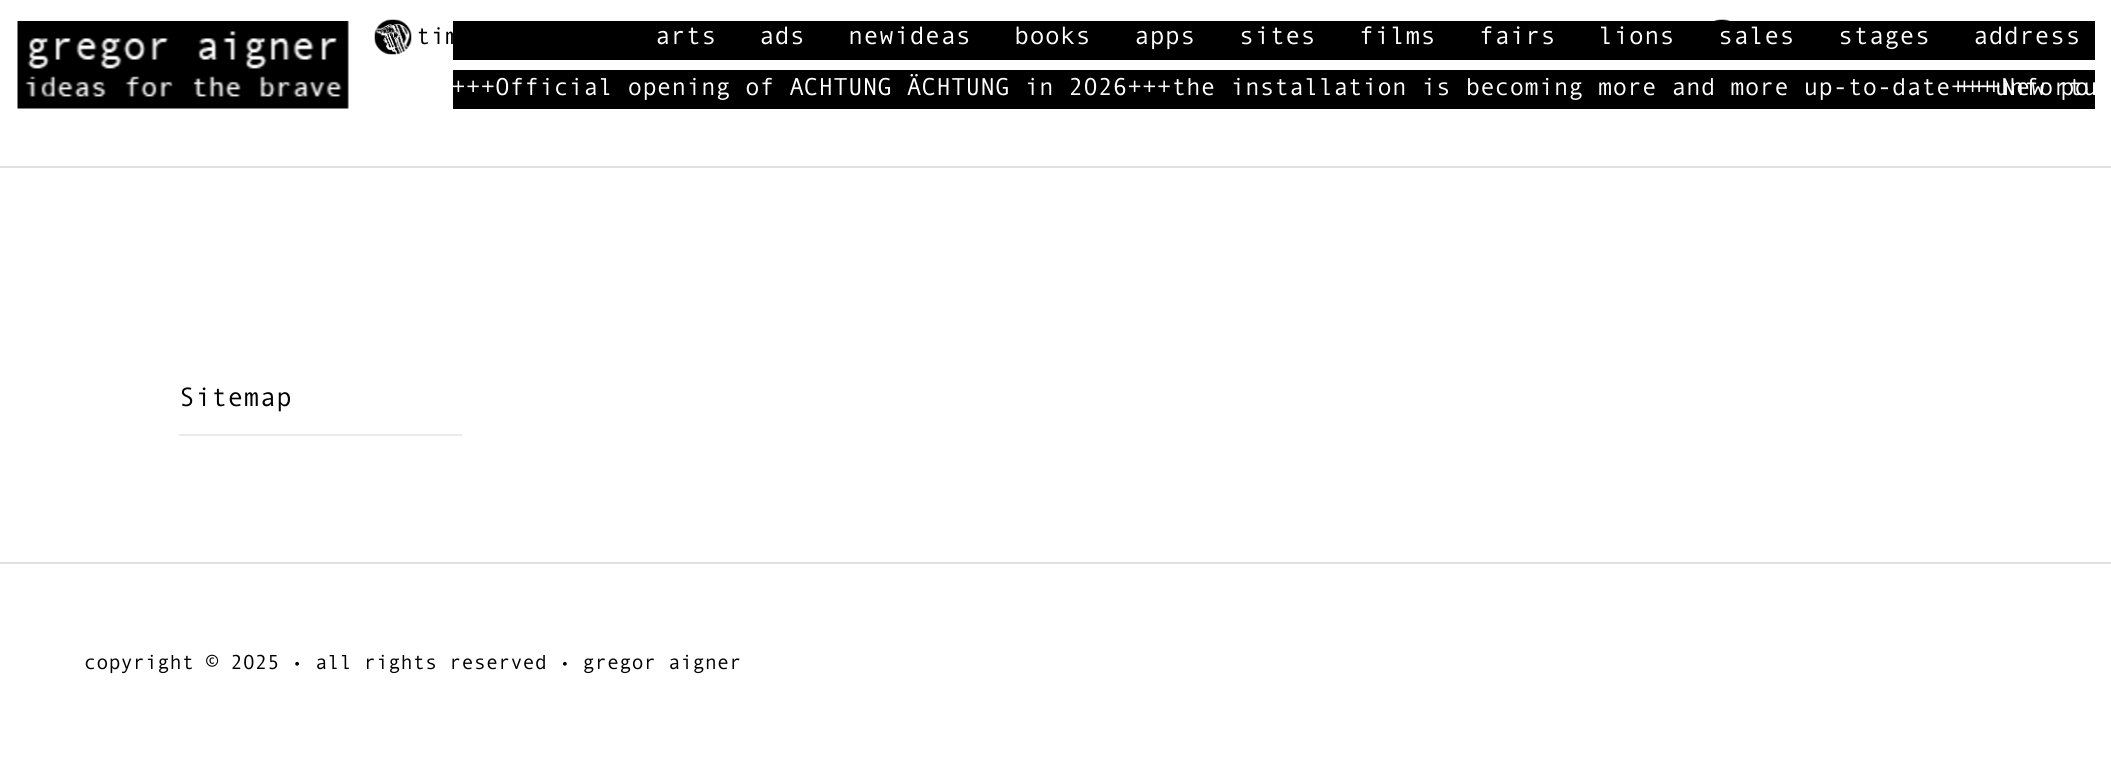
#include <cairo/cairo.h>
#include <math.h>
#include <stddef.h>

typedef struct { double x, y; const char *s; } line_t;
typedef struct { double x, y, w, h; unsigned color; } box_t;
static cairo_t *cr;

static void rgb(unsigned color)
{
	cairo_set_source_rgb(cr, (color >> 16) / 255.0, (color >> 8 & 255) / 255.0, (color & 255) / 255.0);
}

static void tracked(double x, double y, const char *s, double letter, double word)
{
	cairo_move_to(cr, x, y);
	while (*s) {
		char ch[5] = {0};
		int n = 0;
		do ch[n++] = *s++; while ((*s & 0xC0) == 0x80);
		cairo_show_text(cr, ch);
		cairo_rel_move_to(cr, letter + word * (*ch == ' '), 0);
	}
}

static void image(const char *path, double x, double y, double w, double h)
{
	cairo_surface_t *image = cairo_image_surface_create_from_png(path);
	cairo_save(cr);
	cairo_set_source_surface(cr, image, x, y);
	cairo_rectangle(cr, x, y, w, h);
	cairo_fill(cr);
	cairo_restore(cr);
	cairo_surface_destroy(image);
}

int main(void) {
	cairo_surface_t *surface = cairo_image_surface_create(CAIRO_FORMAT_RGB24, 2111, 766);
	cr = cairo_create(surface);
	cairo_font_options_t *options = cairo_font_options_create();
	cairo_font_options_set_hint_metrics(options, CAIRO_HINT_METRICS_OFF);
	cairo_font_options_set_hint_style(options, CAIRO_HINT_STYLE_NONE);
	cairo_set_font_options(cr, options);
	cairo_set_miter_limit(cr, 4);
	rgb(0xffffff);
	cairo_paint(cr);
	image("img/1.png", 1714, 19, 16, 2);
	image("img/2.png", 374, 19, 38, 36);
	image("img/3.png", 17, 21, 332, 88);
	{
		static const box_t items[] = {
			{453, 21, 1642, 39, 0x000000},
			{453, 70, 1642, 39, 0x000000},
			{0, 166, 2111, 2, 0xe0e0e0},
			{179, 434, 283, 2, 0xebebeb},
			{0, 562, 2111, 2, 0xe0e0e0},
		};
		for (size_t i = 0; i < sizeof items / sizeof *items; i++) {
			rgb(items[i].color);
			cairo_rectangle(cr, items[i].x, items[i].y, items[i].w, items[i].h);
			cairo_fill(cr);
		}
	}
	cairo_select_font_face(cr, "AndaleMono", CAIRO_FONT_SLANT_NORMAL, CAIRO_FONT_WEIGHT_NORMAL);
	cairo_set_font_size(cr, 24);
	rgb(0x000000);
	cairo_move_to(cr, 416, 44);
	cairo_show_text(cr, "tim");
	cairo_set_font_size(cr, 25.25);
	rgb(0xffffff);
	{
		static const line_t items[] = {
			{655, 44, "arts"},
			{759, 44, "ads"},
			{848, 44, "newideas"},
			{1014, 44, "books"},
			{1134, 44, "apps"},
			{1239, 44, "sites"},
			{1359, 44, "films"},
			{1479, 44, "fairs"},
			{1598, 44, "lions"},
			{1718, 44, "sales"},
			{1838, 44, "stages"},
			{1973, 44, "address"},
		};
		for (size_t i = 0; i < sizeof items / sizeof *items; i++) {
			tracked(items[i].x, items[i].y, items[i].s, 0.25, 0);
		}
	}
	cairo_save(cr);
	cairo_rectangle(cr, 453, 70, 1642, 39);
	cairo_clip(cr);
	cairo_set_font_size(cr, 24.5);
	cairo_move_to(cr, 451, 95);
	cairo_show_text(cr, "+++Official opening of ACHTUNG ÄCHTUNG in 2026+++the installation is becoming more and more up-to-date+++unfortu");
	cairo_move_to(cr, 1957, 95);
	cairo_show_text(cr, "+++New por");
	cairo_restore(cr);
	cairo_set_font_size(cr, 26.5);
	rgb(0x000000);
	tracked(179, 406, "Sitemap", 0.25, 0);
	cairo_set_font_size(cr, 20.35);
	cairo_move_to(cr, 84, 669);
	cairo_show_text(cr, "copyright © 2025 · all rights reserved · gregor aigner");
	cairo_surface_write_to_png(surface, "page.png");
	cairo_font_options_destroy(options);
	cairo_destroy(cr);
	cairo_surface_destroy(surface);
	return 0;
}
